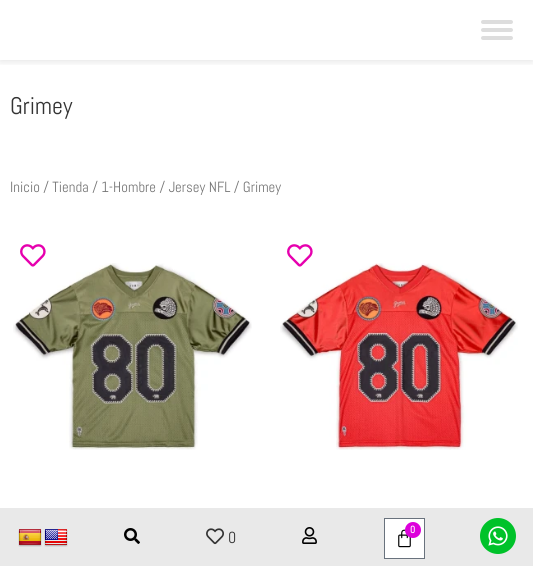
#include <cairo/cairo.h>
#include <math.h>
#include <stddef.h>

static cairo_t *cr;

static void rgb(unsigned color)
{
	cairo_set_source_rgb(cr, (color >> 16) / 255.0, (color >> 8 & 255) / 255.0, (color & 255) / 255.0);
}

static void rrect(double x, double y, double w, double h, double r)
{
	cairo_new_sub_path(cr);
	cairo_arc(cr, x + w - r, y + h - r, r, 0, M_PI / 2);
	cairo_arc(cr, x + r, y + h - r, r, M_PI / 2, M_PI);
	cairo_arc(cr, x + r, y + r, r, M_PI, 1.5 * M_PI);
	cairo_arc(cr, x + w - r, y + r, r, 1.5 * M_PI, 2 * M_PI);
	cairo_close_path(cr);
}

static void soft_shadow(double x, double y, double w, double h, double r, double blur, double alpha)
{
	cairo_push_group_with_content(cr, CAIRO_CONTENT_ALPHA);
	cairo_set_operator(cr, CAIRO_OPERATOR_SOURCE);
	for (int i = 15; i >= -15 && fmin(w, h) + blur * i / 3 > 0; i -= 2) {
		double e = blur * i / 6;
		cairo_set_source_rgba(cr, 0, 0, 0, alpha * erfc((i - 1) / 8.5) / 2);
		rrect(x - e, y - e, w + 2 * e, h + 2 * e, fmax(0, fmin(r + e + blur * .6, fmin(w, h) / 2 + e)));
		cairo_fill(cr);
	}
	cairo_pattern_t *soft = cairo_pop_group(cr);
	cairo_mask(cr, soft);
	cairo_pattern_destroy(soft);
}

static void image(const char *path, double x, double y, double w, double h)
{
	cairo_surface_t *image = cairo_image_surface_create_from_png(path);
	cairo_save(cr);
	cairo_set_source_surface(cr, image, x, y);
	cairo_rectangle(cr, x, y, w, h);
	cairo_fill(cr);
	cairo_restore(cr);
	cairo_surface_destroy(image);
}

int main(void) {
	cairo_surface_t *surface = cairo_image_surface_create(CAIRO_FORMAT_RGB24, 533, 566);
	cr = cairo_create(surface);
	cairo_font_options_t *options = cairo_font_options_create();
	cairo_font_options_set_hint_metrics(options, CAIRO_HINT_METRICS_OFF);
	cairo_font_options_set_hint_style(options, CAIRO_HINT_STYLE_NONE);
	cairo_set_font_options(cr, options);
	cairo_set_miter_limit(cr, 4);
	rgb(0xffffff);
	cairo_paint(cr);
	cairo_save(cr);
	cairo_rectangle(cr, 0, 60, 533, 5);
	cairo_clip(cr);
	rgb(0x000000);
	soft_shadow(0, 0, 533, 60, 0, 5, 0.14);
	cairo_restore(cr);
	rgb(0xdddddd);
	rrect(481, 20, 32, 4, 2);
	cairo_fill(cr);
	rrect(481, 28, 32, 4, 2);
	cairo_fill(cr);
	rrect(481, 36, 32, 4, 2);
	cairo_fill(cr);
	image("img/2.png", 13, 263, 239, 187);
	image("img/1.png", 20, 244, 26, 23);
	image("img/3.png", 280, 263, 238, 187);
	image("img/1.png", 287, 244, 26, 23);
	rgb(0xe9e9e9);
	cairo_rectangle(cr, 0, 508, 533, 58);
	cairo_fill(cr);
	image("img/4.png", 18, 529, 24, 18);
	image("img/5.png", 44, 529, 24, 18);
	image("img/6.png", 124, 528, 16, 16);
	image("img/7.png", 206, 528, 18, 17);
	image("img/8.png", 302, 527, 15, 17);
	rgb(0xffffff);
	cairo_rectangle(cr, 384.5, 518.5, 40, 40);
	cairo_fill_preserve(cr);
	rgb(0x69727d);
	cairo_set_line_width(cr, 1);
	cairo_stroke(cr);
	image("img/9.png", 398, 529, 13, 19);
	rgb(0xdd00db);
	cairo_arc(cr, 413, 530, 8, 0, 2 * M_PI);
	cairo_fill(cr);
	rgb(0x00c22a);
	cairo_arc(cr, 498, 536, 18, 0, 2 * M_PI);
	cairo_fill(cr);
	image("img/10.png", 488, 526, 20, 20);
	cairo_select_font_face(cr, "Abel", CAIRO_FONT_SLANT_NORMAL, CAIRO_FONT_WEIGHT_NORMAL);
	cairo_set_font_size(cr, 24);
	rgb(0x333333);
	cairo_move_to(cr, 10, 114);
	cairo_show_text(cr, "Grimey");
	cairo_set_font_size(cr, 14.75);
	rgb(0x767676);
	cairo_move_to(cr, 10, 192);
	cairo_show_text(cr, "Inicio / Tienda / 1-Hombre / Jersey NFL / Grimey");
	cairo_set_font_size(cr, 16);
	rgb(0x333333);
	cairo_move_to(cr, 228, 543);
	cairo_show_text(cr, "0");
	cairo_select_font_face(cr, "Abel", CAIRO_FONT_SLANT_NORMAL, CAIRO_FONT_WEIGHT_BOLD);
	cairo_set_font_size(cr, 10);
	rgb(0xffffff);
	cairo_move_to(cr, 410, 533);
	cairo_show_text(cr, "0");
	cairo_surface_write_to_png(surface, "page.png");
	cairo_font_options_destroy(options);
	cairo_destroy(cr);
	cairo_surface_destroy(surface);
	return 0;
}
